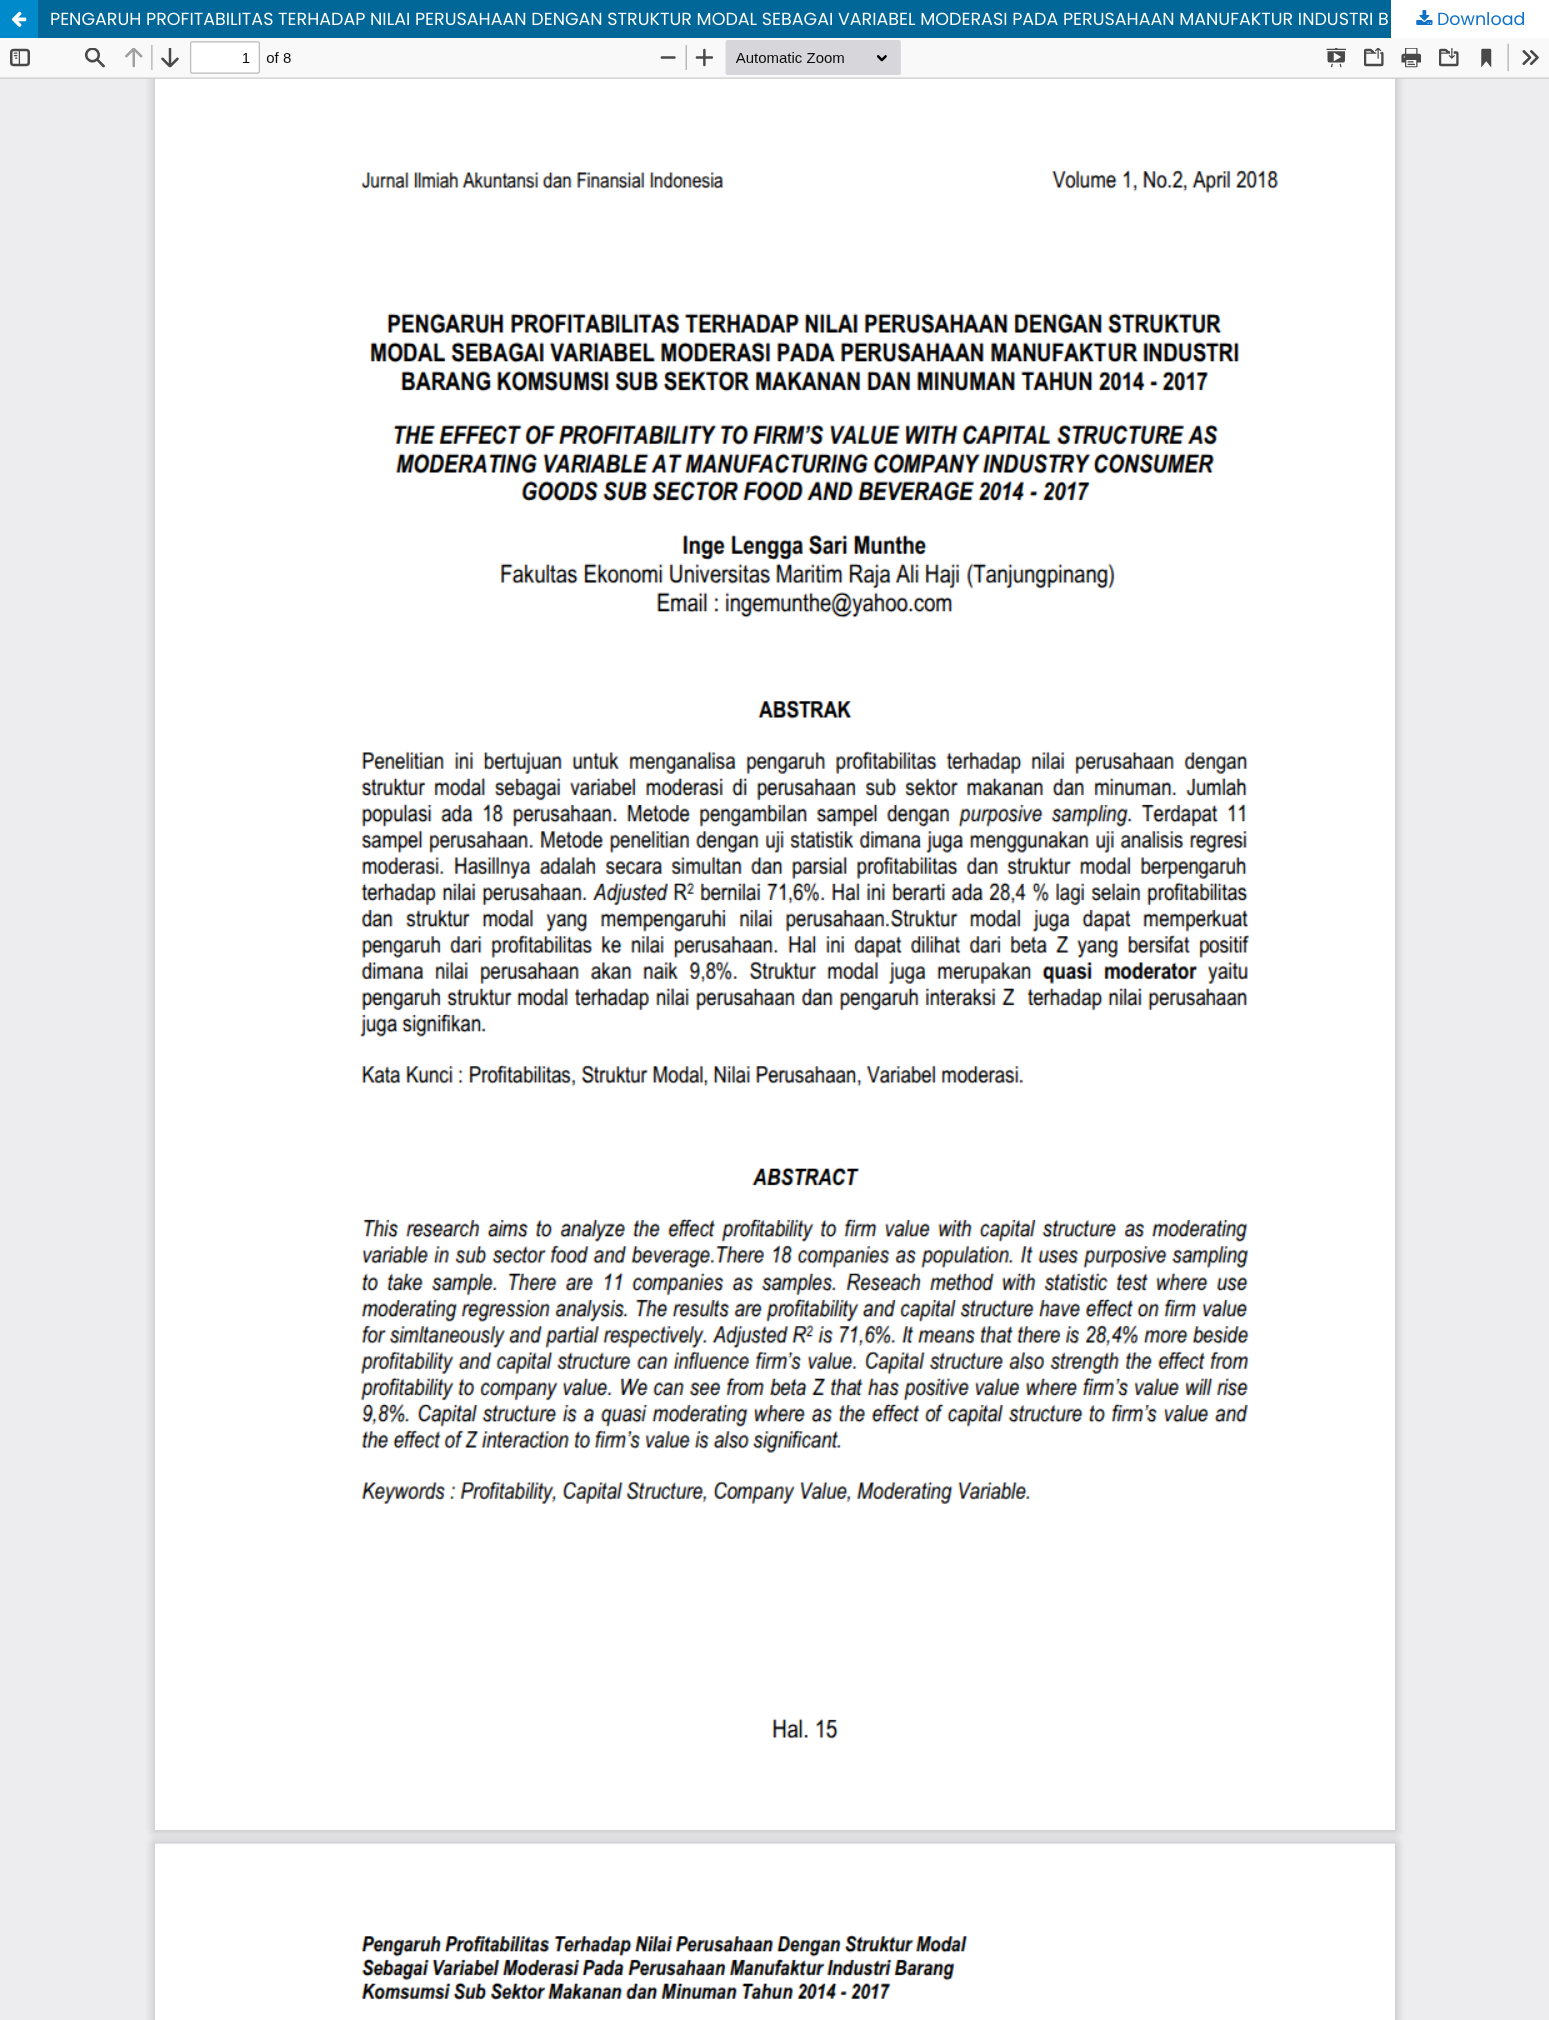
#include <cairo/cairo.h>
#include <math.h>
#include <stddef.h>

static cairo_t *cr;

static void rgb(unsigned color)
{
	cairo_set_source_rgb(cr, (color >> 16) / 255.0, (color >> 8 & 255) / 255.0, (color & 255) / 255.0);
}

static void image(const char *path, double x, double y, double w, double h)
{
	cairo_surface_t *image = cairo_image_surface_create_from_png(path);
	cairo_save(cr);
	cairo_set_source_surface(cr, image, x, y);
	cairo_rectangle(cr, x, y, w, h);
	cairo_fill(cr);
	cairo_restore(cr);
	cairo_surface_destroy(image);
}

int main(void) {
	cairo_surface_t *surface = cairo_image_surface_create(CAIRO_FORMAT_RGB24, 1549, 2020);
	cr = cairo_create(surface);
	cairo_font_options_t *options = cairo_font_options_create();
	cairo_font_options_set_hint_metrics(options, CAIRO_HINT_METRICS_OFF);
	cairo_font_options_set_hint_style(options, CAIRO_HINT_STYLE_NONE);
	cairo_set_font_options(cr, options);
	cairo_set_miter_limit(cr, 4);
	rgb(0xffffff);
	cairo_paint(cr);
	rgb(0x006798);
	cairo_rectangle(cr, 38, 0, 1353, 38);
	cairo_fill(cr);
	rgb(0x008acb);
	cairo_rectangle(cr, 0, 0, 38, 38);
	cairo_fill(cr);
	image("img/1.png", 11, 11, 16, 16);
	image("img/2.png", 1416, 10, 17, 15);
	image("img/3.png", 0, 38, 1549, 1982);
	cairo_select_font_face(cr, "Poppins", CAIRO_FONT_SLANT_NORMAL, CAIRO_FONT_WEIGHT_NORMAL);
	cairo_set_font_size(cr, 17.5);
	rgb(0xffffff);
	cairo_move_to(cr, 50, 25);
	cairo_show_text(cr, "PENGARUH PROFITABILITAS TERHADAP NILAI PERUSAHAAN DENGAN STRUKTUR MODAL SEBAGAI VARIABEL MODERASI PADA PERUSAHAAN MANUFAKTUR INDUSTRI B");
	rgb(0x0f72c7);
	cairo_move_to(cr, 1437, 25);
	cairo_show_text(cr, "Download");
	cairo_surface_write_to_png(surface, "page.png");
	cairo_font_options_destroy(options);
	cairo_destroy(cr);
	cairo_surface_destroy(surface);
	return 0;
}
